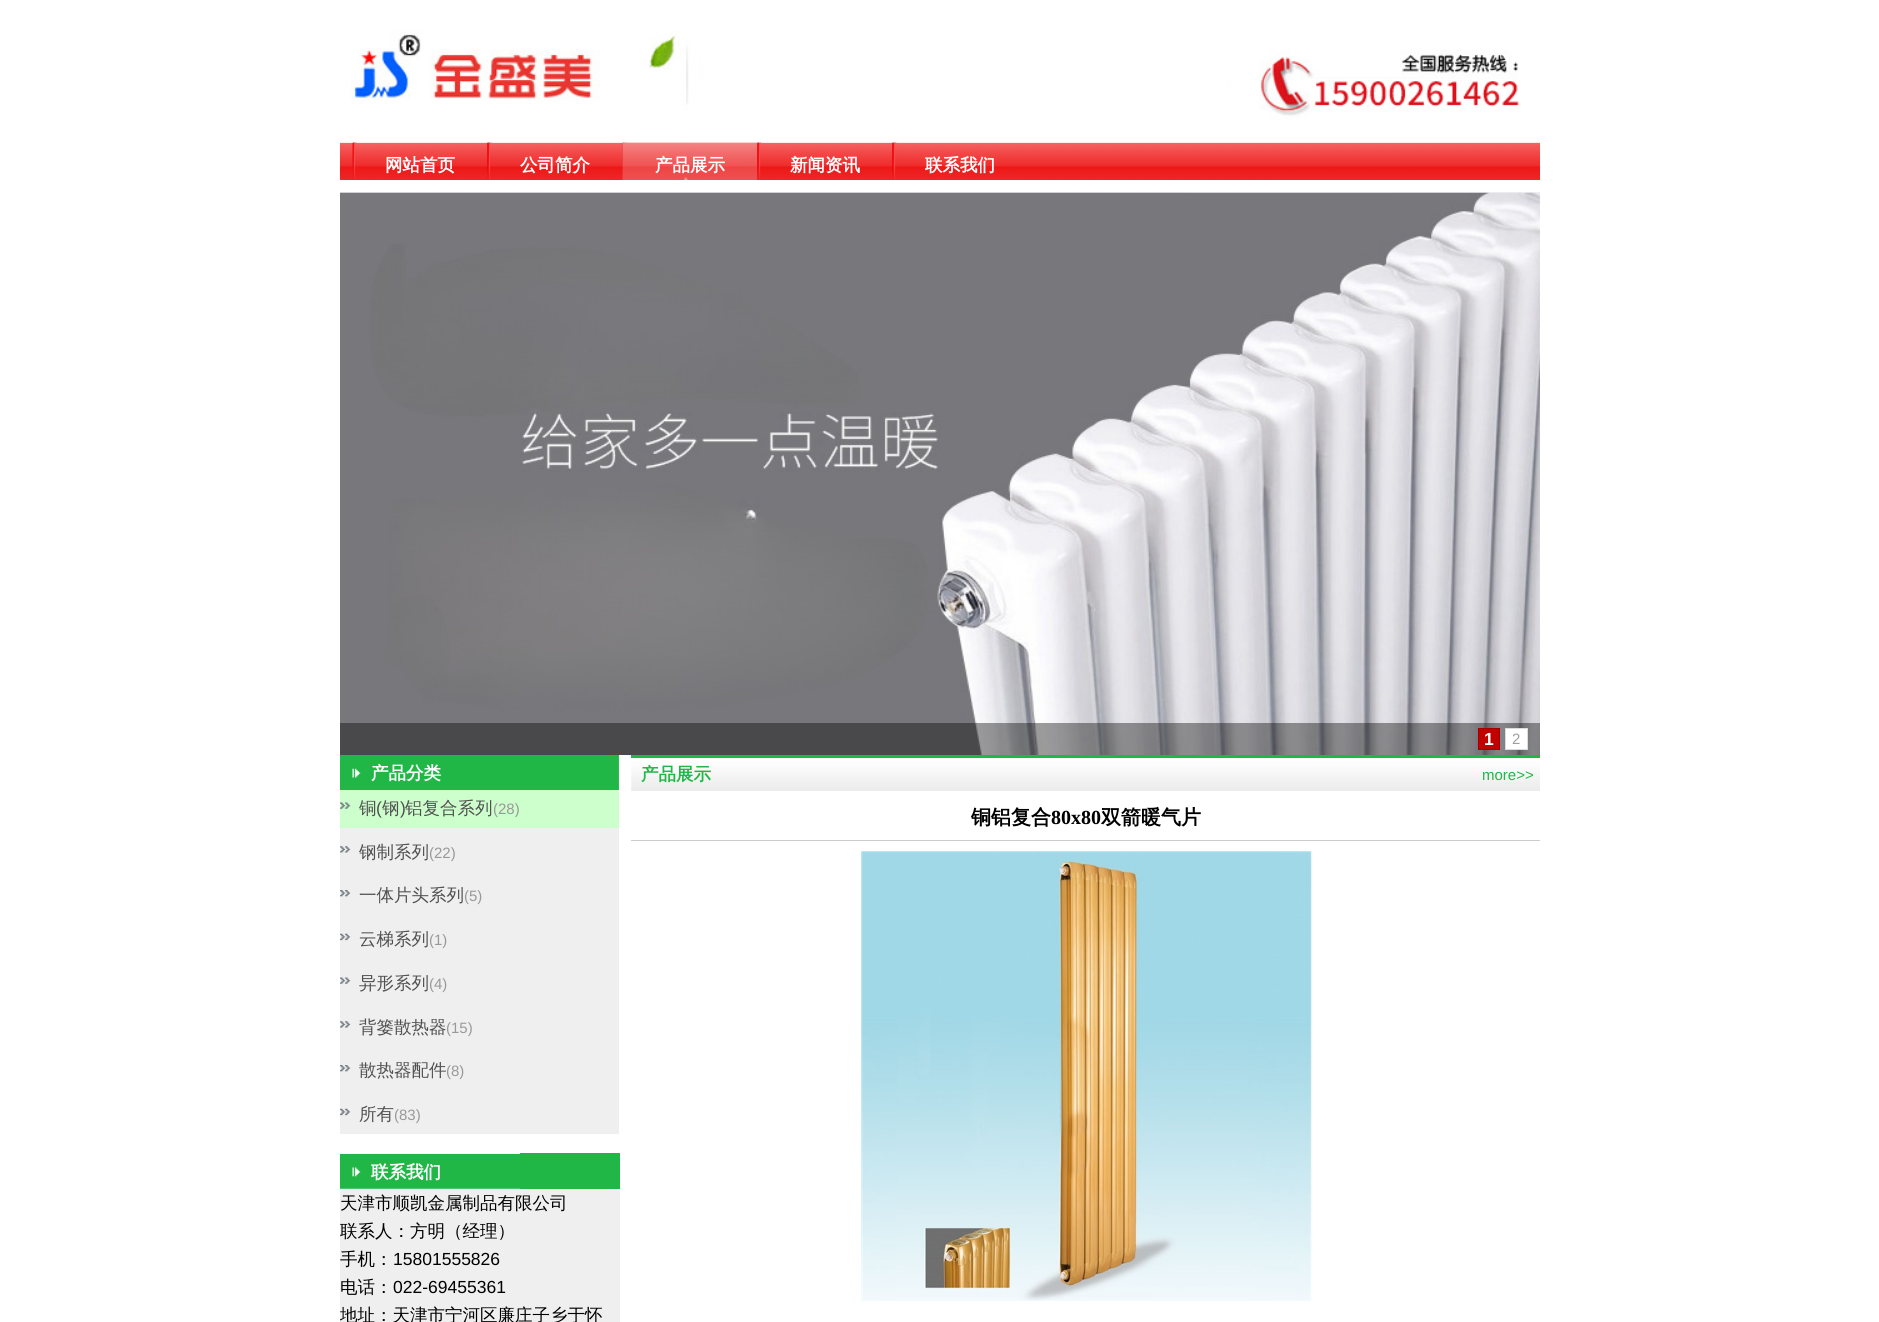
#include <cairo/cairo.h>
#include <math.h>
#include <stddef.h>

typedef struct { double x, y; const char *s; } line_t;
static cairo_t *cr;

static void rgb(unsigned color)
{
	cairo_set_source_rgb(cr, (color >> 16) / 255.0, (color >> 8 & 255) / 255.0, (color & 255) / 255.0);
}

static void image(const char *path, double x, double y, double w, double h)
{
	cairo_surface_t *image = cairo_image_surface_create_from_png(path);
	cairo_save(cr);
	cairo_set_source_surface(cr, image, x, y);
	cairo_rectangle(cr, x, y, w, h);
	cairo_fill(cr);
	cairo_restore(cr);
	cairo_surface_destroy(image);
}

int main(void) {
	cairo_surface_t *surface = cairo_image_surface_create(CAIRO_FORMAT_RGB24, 1879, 1322);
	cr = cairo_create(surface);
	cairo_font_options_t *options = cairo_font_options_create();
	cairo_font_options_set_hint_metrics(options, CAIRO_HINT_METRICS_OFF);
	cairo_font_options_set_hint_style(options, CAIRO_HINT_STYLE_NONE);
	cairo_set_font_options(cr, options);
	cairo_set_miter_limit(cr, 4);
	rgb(0xffffff);
	cairo_paint(cr);
	image("img/1.png", 350, 30, 1169, 90);
	image("img/2.png", 340, 142, 1200, 38);
	image("img/3.png", 352, 142, 5, 38);
	image("img/4.png", 352, 142, 5, 25);
	image("img/5.png", 487, 142, 5, 38);
	image("img/6.png", 487, 142, 5, 30);
	image("img/5.png", 622, 142, 5, 38);
	image("img/7.png", 622, 142, 136, 38);
	image("img/8.png", 757, 142, 5, 38);
	image("img/9.png", 757, 142, 5, 38);
	image("img/5.png", 892, 142, 5, 38);
	image("img/6.png", 892, 142, 5, 30);
	image("img/10.png", 340, 192, 1200, 1);
	image("img/11.png", 340, 192, 1200, 563);
	cairo_set_source_rgba(cr, 0, 0, 0, 0.39);
	cairo_rectangle(cr, 340, 723, 1200, 32);
	cairo_fill(cr);
	rgb(0xc00100);
	cairo_rectangle(cr, 1478.5, 728.5, 21, 21);
	cairo_fill_preserve(cr);
	rgb(0xa00100);
	cairo_set_line_width(cr, 1);
	cairo_stroke(cr);
	rgb(0xffffff);
	cairo_rectangle(cr, 1505.5, 728.5, 22, 21);
	cairo_fill_preserve(cr);
	rgb(0xdcdcdc);
	cairo_stroke(cr);
	rgb(0xf0efef);
	cairo_rectangle(cr, 340, 828, 279, 306);
	cairo_fill(cr);
	image("img/12.png", 340, 755, 278, 35);
	rgb(0x2dba50);
	cairo_rectangle(cr, 618, 755, 1, 35);
	cairo_fill(cr);
	rgb(0xccffcc);
	cairo_rectangle(cr, 340, 790, 279, 38);
	cairo_fill(cr);
	image("img/13.png", 340, 802, 11, 7);
	image("img/14.png", 340, 846, 11, 7);
	image("img/15.png", 340, 890, 11, 7);
	image("img/16.png", 340, 933, 11, 8);
	image("img/17.png", 340, 977, 11, 7);
	image("img/18.png", 340, 1021, 11, 7);
	image("img/15.png", 340, 1065, 11, 7);
	image("img/16.png", 340, 1108, 11, 8);
	rgb(0x20b747);
	cairo_rectangle(cr, 631, 755, 909, 3);
	cairo_fill(cr);
	image("img/19.png", 631, 758, 844, 33);
	image("img/20.png", 1475, 758, 65, 33);
	rgb(0xcccccc);
	cairo_rectangle(cr, 631, 840, 909, 1);
	cairo_fill(cr);
	image("img/21.png", 861, 851, 451, 451);
	rgb(0xf0efef);
	cairo_rectangle(cr, 340, 1188, 280, 134);
	cairo_fill(cr);
	image("img/22.png", 340, 1153, 180, 36);
	rgb(0x20b747);
	cairo_rectangle(cr, 520, 1153, 100, 36);
	cairo_fill(cr);
	cairo_select_font_face(cr, "WenQuanYi Zen Hei", CAIRO_FONT_SLANT_NORMAL, CAIRO_FONT_WEIGHT_BOLD);
	cairo_set_font_size(cr, 17.5);
	rgb(0xffffff);
	{
		static const line_t items[] = {
			{385, 171, "网站首页"},
			{520, 171, "公司简介"},
			{655, 171, "产品展示"},
			{790, 171, "新闻资讯"},
			{925, 171, "联系我们"},
		};
		for (size_t i = 0; i < sizeof items / sizeof *items; i++) {
			cairo_move_to(cr, items[i].x, items[i].y);
			cairo_show_text(cr, items[i].s);
		}
	}
	cairo_select_font_face(cr, "Liberation Sans", CAIRO_FONT_SLANT_NORMAL, CAIRO_FONT_WEIGHT_BOLD);
	cairo_move_to(cr, 1484, 745);
	cairo_show_text(cr, "1");
	cairo_select_font_face(cr, "Liberation Sans", CAIRO_FONT_SLANT_NORMAL, CAIRO_FONT_WEIGHT_NORMAL);
	cairo_set_font_size(cr, 15);
	rgb(0x9f9f9f);
	cairo_move_to(cr, 1512, 744);
	cairo_show_text(cr, "2");
	cairo_select_font_face(cr, "WenQuanYi Zen Hei", CAIRO_FONT_SLANT_NORMAL, CAIRO_FONT_WEIGHT_BOLD);
	cairo_set_font_size(cr, 17.5);
	rgb(0xffffff);
	cairo_move_to(cr, 371, 779);
	cairo_show_text(cr, "产品分类");
	cairo_select_font_face(cr, "WenQuanYi Zen Hei Medium", CAIRO_FONT_SLANT_NORMAL, CAIRO_FONT_WEIGHT_NORMAL);
	rgb(0x505050);
	cairo_move_to(cr, 359, 814);
	cairo_show_text(cr, "铜");
	cairo_select_font_face(cr, "Liberation Sans", CAIRO_FONT_SLANT_NORMAL, CAIRO_FONT_WEIGHT_NORMAL);
	cairo_move_to(cr, 376, 814);
	cairo_show_text(cr, "(");
	cairo_select_font_face(cr, "WenQuanYi Zen Hei Medium", CAIRO_FONT_SLANT_NORMAL, CAIRO_FONT_WEIGHT_NORMAL);
	cairo_move_to(cr, 382, 814);
	cairo_show_text(cr, "钢");
	cairo_select_font_face(cr, "Liberation Sans", CAIRO_FONT_SLANT_NORMAL, CAIRO_FONT_WEIGHT_NORMAL);
	cairo_move_to(cr, 400, 814);
	cairo_show_text(cr, ")");
	cairo_select_font_face(cr, "WenQuanYi Zen Hei Medium", CAIRO_FONT_SLANT_NORMAL, CAIRO_FONT_WEIGHT_NORMAL);
	cairo_move_to(cr, 405, 814);
	cairo_show_text(cr, "铝复合系列");
	cairo_select_font_face(cr, "Liberation Sans", CAIRO_FONT_SLANT_NORMAL, CAIRO_FONT_WEIGHT_NORMAL);
	cairo_set_font_size(cr, 15);
	rgb(0x999999);
	cairo_move_to(cr, 493, 814);
	cairo_show_text(cr, "(28)");
	cairo_select_font_face(cr, "WenQuanYi Zen Hei Medium", CAIRO_FONT_SLANT_NORMAL, CAIRO_FONT_WEIGHT_NORMAL);
	cairo_set_font_size(cr, 17.5);
	rgb(0x505050);
	cairo_move_to(cr, 359, 858);
	cairo_show_text(cr, "钢制系列");
	cairo_select_font_face(cr, "Liberation Sans", CAIRO_FONT_SLANT_NORMAL, CAIRO_FONT_WEIGHT_NORMAL);
	cairo_set_font_size(cr, 15);
	rgb(0x999999);
	cairo_move_to(cr, 429, 858);
	cairo_show_text(cr, "(22)");
	cairo_select_font_face(cr, "WenQuanYi Zen Hei Medium", CAIRO_FONT_SLANT_NORMAL, CAIRO_FONT_WEIGHT_NORMAL);
	cairo_set_font_size(cr, 17.5);
	rgb(0x505050);
	cairo_move_to(cr, 359, 901);
	cairo_show_text(cr, "一体片头系列");
	cairo_select_font_face(cr, "Liberation Sans", CAIRO_FONT_SLANT_NORMAL, CAIRO_FONT_WEIGHT_NORMAL);
	cairo_set_font_size(cr, 15);
	rgb(0x999999);
	cairo_move_to(cr, 464, 901);
	cairo_show_text(cr, "(5)");
	cairo_select_font_face(cr, "WenQuanYi Zen Hei Medium", CAIRO_FONT_SLANT_NORMAL, CAIRO_FONT_WEIGHT_NORMAL);
	cairo_set_font_size(cr, 17.5);
	rgb(0x505050);
	cairo_move_to(cr, 359, 945);
	cairo_show_text(cr, "云梯系列");
	cairo_select_font_face(cr, "Liberation Sans", CAIRO_FONT_SLANT_NORMAL, CAIRO_FONT_WEIGHT_NORMAL);
	cairo_set_font_size(cr, 15);
	rgb(0x999999);
	cairo_move_to(cr, 429, 945);
	cairo_show_text(cr, "(1)");
	cairo_select_font_face(cr, "WenQuanYi Zen Hei Medium", CAIRO_FONT_SLANT_NORMAL, CAIRO_FONT_WEIGHT_NORMAL);
	cairo_set_font_size(cr, 17.5);
	rgb(0x505050);
	cairo_move_to(cr, 359, 989);
	cairo_show_text(cr, "异形系列");
	cairo_select_font_face(cr, "Liberation Sans", CAIRO_FONT_SLANT_NORMAL, CAIRO_FONT_WEIGHT_NORMAL);
	cairo_set_font_size(cr, 15);
	rgb(0x999999);
	cairo_move_to(cr, 429, 989);
	cairo_show_text(cr, "(4)");
	cairo_select_font_face(cr, "WenQuanYi Zen Hei Medium", CAIRO_FONT_SLANT_NORMAL, CAIRO_FONT_WEIGHT_NORMAL);
	cairo_set_font_size(cr, 17.5);
	rgb(0x505050);
	cairo_move_to(cr, 359, 1033);
	cairo_show_text(cr, "背篓散热器");
	cairo_select_font_face(cr, "Liberation Sans", CAIRO_FONT_SLANT_NORMAL, CAIRO_FONT_WEIGHT_NORMAL);
	cairo_set_font_size(cr, 15);
	rgb(0x999999);
	cairo_move_to(cr, 446, 1033);
	cairo_show_text(cr, "(15)");
	cairo_select_font_face(cr, "WenQuanYi Zen Hei Medium", CAIRO_FONT_SLANT_NORMAL, CAIRO_FONT_WEIGHT_NORMAL);
	cairo_set_font_size(cr, 17.5);
	rgb(0x505050);
	cairo_move_to(cr, 359, 1076);
	cairo_show_text(cr, "散热器配件");
	cairo_select_font_face(cr, "Liberation Sans", CAIRO_FONT_SLANT_NORMAL, CAIRO_FONT_WEIGHT_NORMAL);
	cairo_set_font_size(cr, 15);
	rgb(0x999999);
	cairo_move_to(cr, 446, 1076);
	cairo_show_text(cr, "(8)");
	cairo_select_font_face(cr, "WenQuanYi Zen Hei Medium", CAIRO_FONT_SLANT_NORMAL, CAIRO_FONT_WEIGHT_NORMAL);
	cairo_set_font_size(cr, 17.5);
	rgb(0x505050);
	cairo_move_to(cr, 359, 1120);
	cairo_show_text(cr, "所有");
	cairo_select_font_face(cr, "Liberation Sans", CAIRO_FONT_SLANT_NORMAL, CAIRO_FONT_WEIGHT_NORMAL);
	cairo_set_font_size(cr, 15);
	rgb(0x999999);
	cairo_move_to(cr, 394, 1120);
	cairo_show_text(cr, "(83)");
	cairo_select_font_face(cr, "WenQuanYi Zen Hei", CAIRO_FONT_SLANT_NORMAL, CAIRO_FONT_WEIGHT_BOLD);
	cairo_set_font_size(cr, 17.5);
	rgb(0x20b747);
	cairo_move_to(cr, 641, 780);
	cairo_show_text(cr, "产品展示");
	cairo_select_font_face(cr, "Liberation Sans", CAIRO_FONT_SLANT_NORMAL, CAIRO_FONT_WEIGHT_NORMAL);
	cairo_set_font_size(cr, 15);
	cairo_move_to(cr, 1482, 780);
	cairo_show_text(cr, "more>>");
	cairo_select_font_face(cr, "WenQuanYi Zen Hei", CAIRO_FONT_SLANT_NORMAL, CAIRO_FONT_WEIGHT_BOLD);
	cairo_set_font_size(cr, 20);
	rgb(0x000000);
	cairo_move_to(cr, 971, 824);
	cairo_show_text(cr, "铜铝复合");
	cairo_select_font_face(cr, "Liberation Serif", CAIRO_FONT_SLANT_NORMAL, CAIRO_FONT_WEIGHT_BOLD);
	cairo_move_to(cr, 1051, 824);
	cairo_show_text(cr, "80x80");
	cairo_select_font_face(cr, "WenQuanYi Zen Hei", CAIRO_FONT_SLANT_NORMAL, CAIRO_FONT_WEIGHT_BOLD);
	cairo_move_to(cr, 1101, 824);
	cairo_show_text(cr, "双箭暖气片");
	cairo_set_font_size(cr, 17.5);
	rgb(0xffffff);
	cairo_move_to(cr, 371, 1178);
	cairo_show_text(cr, "联系我们");
	cairo_select_font_face(cr, "WenQuanYi Zen Hei Medium", CAIRO_FONT_SLANT_NORMAL, CAIRO_FONT_WEIGHT_NORMAL);
	rgb(0x000000);
	{
		static const line_t items[] = {
			{340, 1209, "天津市顺凯金属制品有限公司"},
			{340, 1237, "联系人：方明（经理）"},
			{340, 1265, "手机："},
		};
		for (size_t i = 0; i < sizeof items / sizeof *items; i++) {
			cairo_move_to(cr, items[i].x, items[i].y);
			cairo_show_text(cr, items[i].s);
		}
	}
	cairo_select_font_face(cr, "Liberation Sans", CAIRO_FONT_SLANT_NORMAL, CAIRO_FONT_WEIGHT_NORMAL);
	cairo_move_to(cr, 393, 1265);
	cairo_show_text(cr, "15801555826");
	cairo_select_font_face(cr, "WenQuanYi Zen Hei Medium", CAIRO_FONT_SLANT_NORMAL, CAIRO_FONT_WEIGHT_NORMAL);
	cairo_move_to(cr, 340, 1293);
	cairo_show_text(cr, "电话：");
	cairo_select_font_face(cr, "Liberation Sans", CAIRO_FONT_SLANT_NORMAL, CAIRO_FONT_WEIGHT_NORMAL);
	cairo_move_to(cr, 393, 1293);
	cairo_show_text(cr, "022-69455361");
	cairo_select_font_face(cr, "WenQuanYi Zen Hei Medium", CAIRO_FONT_SLANT_NORMAL, CAIRO_FONT_WEIGHT_NORMAL);
	cairo_move_to(cr, 340, 1321);
	cairo_show_text(cr, "地址：天津市宁河区廉庄子乡于怀");
	cairo_surface_write_to_png(surface, "page.png");
	cairo_font_options_destroy(options);
	cairo_destroy(cr);
	cairo_surface_destroy(surface);
	return 0;
}
